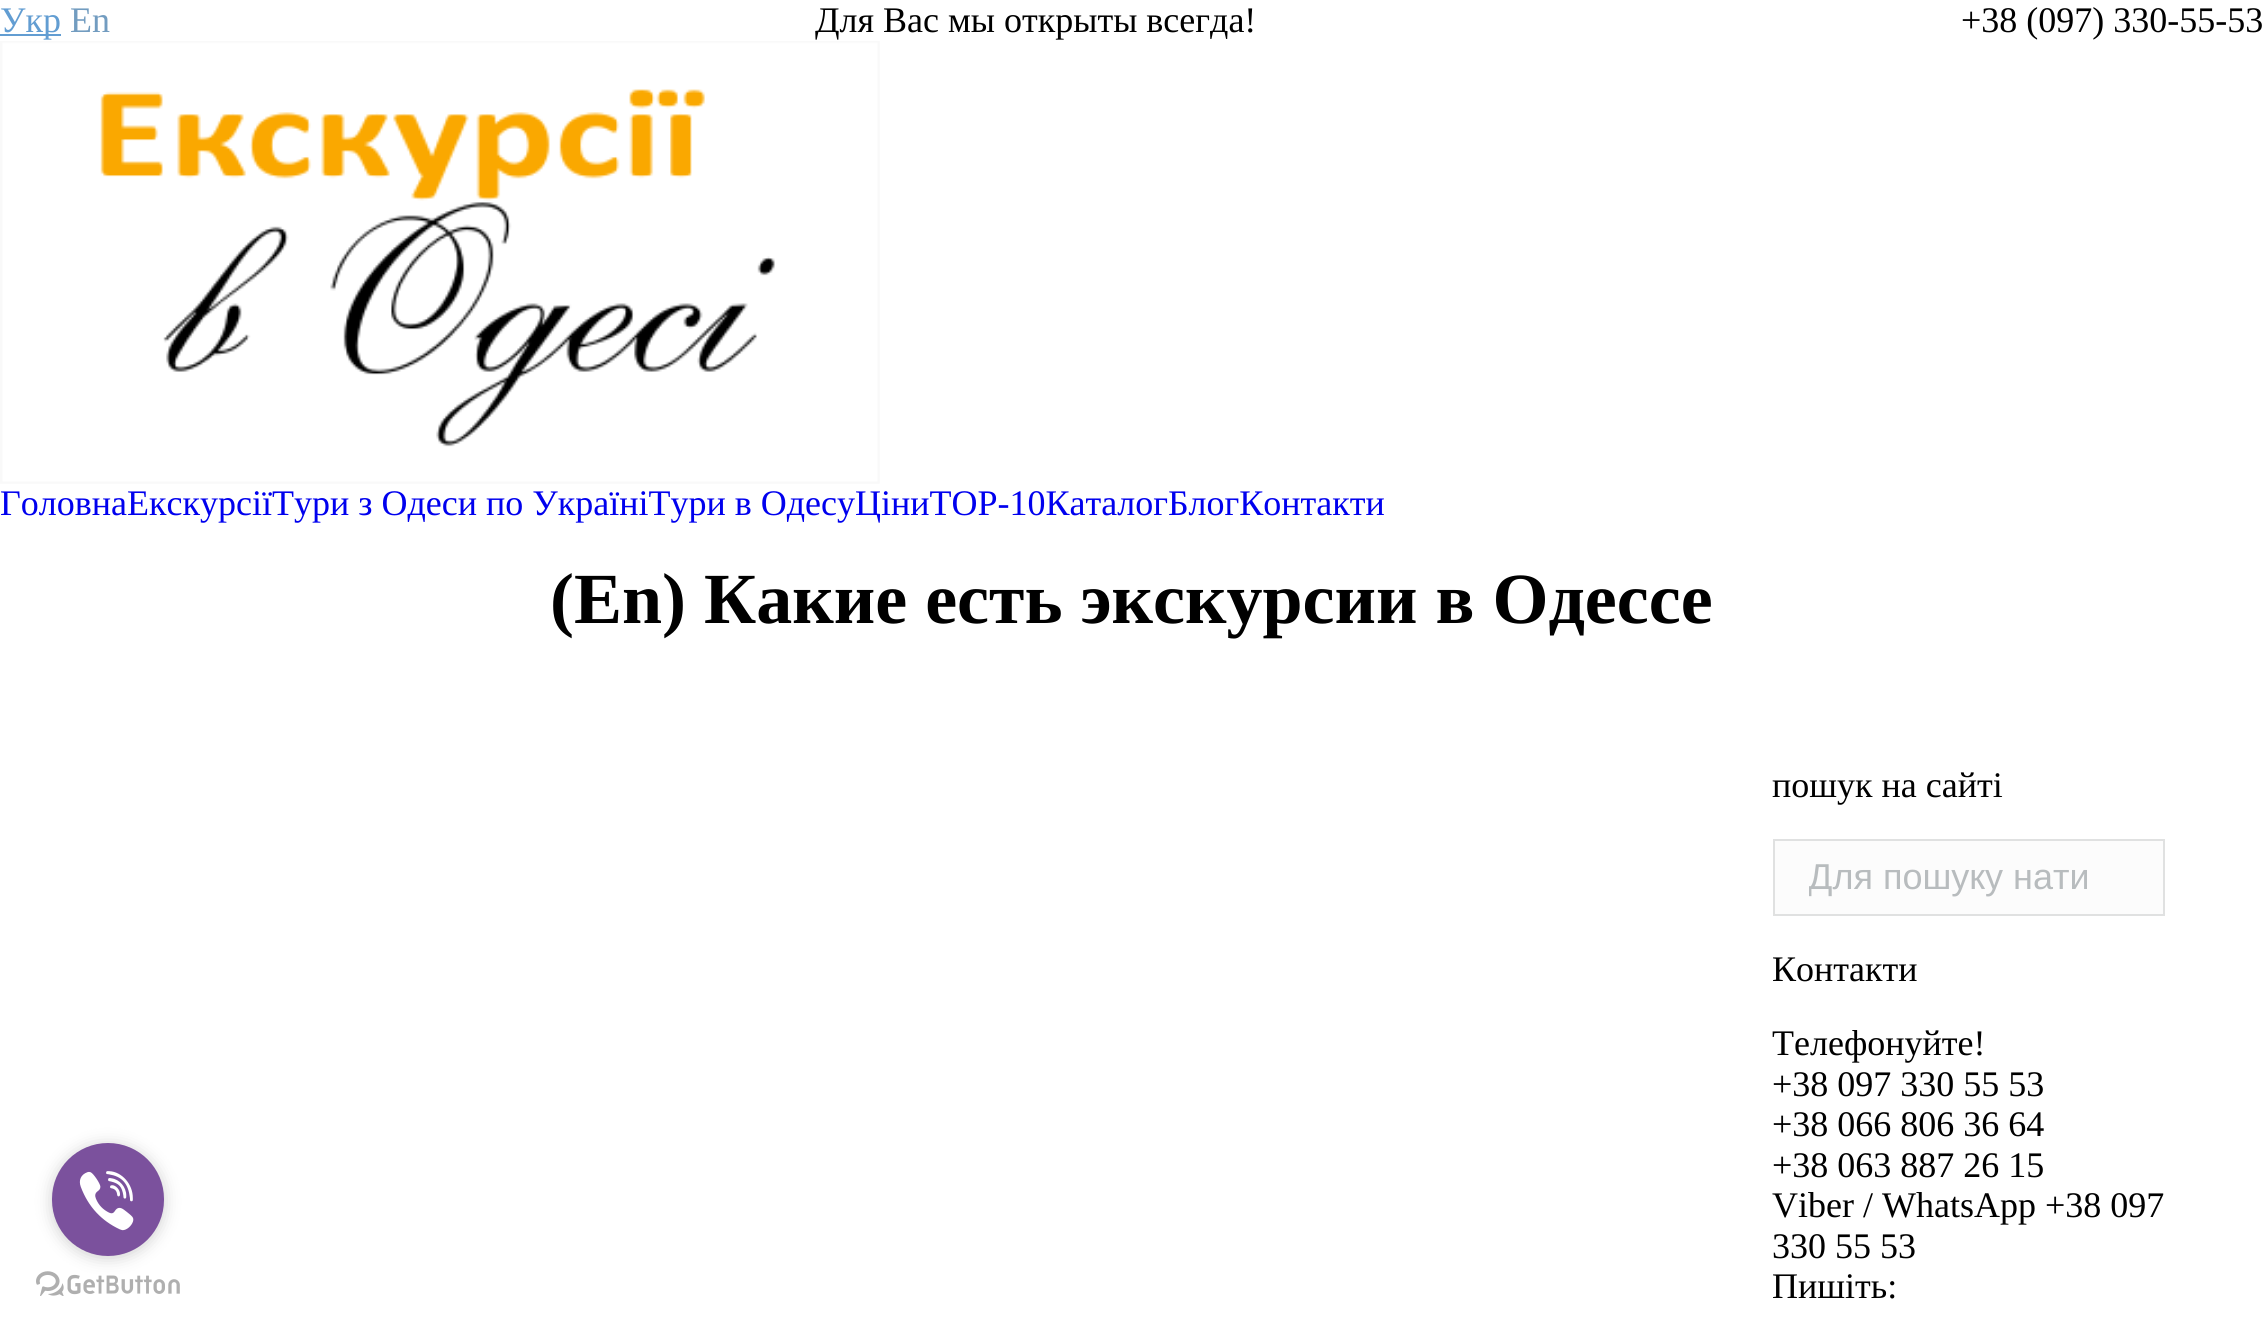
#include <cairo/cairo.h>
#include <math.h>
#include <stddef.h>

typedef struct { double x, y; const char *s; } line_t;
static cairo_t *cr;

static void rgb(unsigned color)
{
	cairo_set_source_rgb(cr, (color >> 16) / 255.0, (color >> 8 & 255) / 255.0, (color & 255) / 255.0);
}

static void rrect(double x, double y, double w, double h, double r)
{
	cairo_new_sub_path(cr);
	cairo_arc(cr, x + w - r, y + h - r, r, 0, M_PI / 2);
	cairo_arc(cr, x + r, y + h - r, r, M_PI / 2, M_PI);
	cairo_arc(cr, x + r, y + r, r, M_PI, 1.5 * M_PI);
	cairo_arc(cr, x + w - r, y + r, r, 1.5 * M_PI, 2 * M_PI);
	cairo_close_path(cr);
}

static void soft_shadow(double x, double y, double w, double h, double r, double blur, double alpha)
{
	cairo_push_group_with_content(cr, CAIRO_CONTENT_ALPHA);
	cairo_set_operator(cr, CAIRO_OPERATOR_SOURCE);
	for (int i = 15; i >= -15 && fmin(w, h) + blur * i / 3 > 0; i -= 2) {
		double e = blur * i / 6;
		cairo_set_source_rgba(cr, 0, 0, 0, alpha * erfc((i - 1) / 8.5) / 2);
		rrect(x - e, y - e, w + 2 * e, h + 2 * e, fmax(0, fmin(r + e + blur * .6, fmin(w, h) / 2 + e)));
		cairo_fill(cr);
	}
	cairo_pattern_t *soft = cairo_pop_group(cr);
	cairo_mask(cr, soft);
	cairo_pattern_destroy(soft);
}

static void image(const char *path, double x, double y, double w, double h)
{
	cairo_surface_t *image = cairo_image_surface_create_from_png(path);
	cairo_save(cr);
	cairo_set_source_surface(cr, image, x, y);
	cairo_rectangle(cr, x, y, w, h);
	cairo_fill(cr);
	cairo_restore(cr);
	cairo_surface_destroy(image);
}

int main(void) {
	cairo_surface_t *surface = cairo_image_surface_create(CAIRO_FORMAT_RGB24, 2262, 1332);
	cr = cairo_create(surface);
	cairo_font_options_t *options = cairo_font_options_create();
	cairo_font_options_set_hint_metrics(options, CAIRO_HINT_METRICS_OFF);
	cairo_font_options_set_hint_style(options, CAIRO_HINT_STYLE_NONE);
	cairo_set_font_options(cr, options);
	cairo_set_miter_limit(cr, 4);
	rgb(0xffffff);
	cairo_paint(cr);
	rgb(0x629dd2);
	cairo_rectangle(cr, 0, 34, 61, 2);
	cairo_fill(cr);
	image("img/1.png", 0, 41, 880, 443);
	rgb(0xfcfcfc);
	cairo_rectangle(cr, 1774, 840, 390, 75);
	cairo_fill_preserve(cr);
	rgb(0xe0e1e1);
	cairo_stroke(cr);
	image("img/3.png", 36, 1271, 144, 25);
	rgb(0x888888);
	soft_shadow(52, 1145, 112, 113, 56, 8, 0.4);
	rgb(0x7b519d);
	rrect(52, 1143, 112, 113, 56);
	cairo_fill(cr);
	image("img/2.png", 79, 1171, 55, 60);
	cairo_select_font_face(cr, "Liberation Serif", CAIRO_FONT_SLANT_NORMAL, CAIRO_FONT_WEIGHT_NORMAL);
	cairo_set_font_size(cr, 36);
	rgb(0x629dd2);
	cairo_move_to(cr, 0, 32);
	cairo_show_text(cr, "Укр");
	rgb(0x729cc0);
	cairo_move_to(cr, 70, 32);
	cairo_show_text(cr, "En");
	rgb(0x000000);
	cairo_move_to(cr, 815, 32);
	cairo_show_text(cr, "Для Вас мы открыты всегда!");
	cairo_move_to(cr, 1961, 32);
	cairo_show_text(cr, "+38 (097) 330-55-53");
	rgb(0x0000ee);
	cairo_move_to(cr, 0, 515);
	cairo_show_text(cr, "ГоловнаЕкскурсіїТури з Одеси по УкраїніТури в ОдесуЦіниTOP-10КаталогБлогКонтакти");
	cairo_select_font_face(cr, "Liberation Serif", CAIRO_FONT_SLANT_NORMAL, CAIRO_FONT_WEIGHT_BOLD);
	cairo_set_font_size(cr, 72);
	rgb(0x000000);
	cairo_move_to(cr, 550, 623);
	cairo_show_text(cr, "(En) Какие есть экскурсии в Одессе");
	cairo_select_font_face(cr, "Liberation Serif", CAIRO_FONT_SLANT_NORMAL, CAIRO_FONT_WEIGHT_NORMAL);
	cairo_set_font_size(cr, 36);
	cairo_move_to(cr, 1772, 797);
	cairo_show_text(cr, "пошук на сайті");
	cairo_save(cr);
	cairo_rectangle(cr, 1809, 857, 286, 41);
	cairo_clip(cr);
	cairo_select_font_face(cr, "Liberation Sans", CAIRO_FONT_SLANT_NORMAL, CAIRO_FONT_WEIGHT_NORMAL);
	rgb(0xb8bcbe);
	cairo_move_to(cr, 1808, 889);
	cairo_show_text(cr, "Для пошуку нати");
	cairo_restore(cr);
	{
		static const line_t items[] = {
			{1772, 981, "Контакти"},
			{1772, 1055, "Телефонуйте!"},
			{1772, 1096, "+38 097 330 55 53"},
			{1772, 1136, "+38 066 806 36 64"},
			{1772, 1177, "+38 063 887 26 15"},
			{1772, 1217, "Viber / WhatsApp +38 097"},
			{1772, 1258, "330 55 53"},
			{1772, 1298, "Пишіть:"},
		};
		for (size_t i = 0; i < sizeof items / sizeof *items; i++) {
			cairo_move_to(cr, items[i].x, items[i].y);
			cairo_show_text(cr, items[i].s);
		}
	}
	cairo_surface_write_to_png(surface, "page.png");
	cairo_font_options_destroy(options);
	cairo_destroy(cr);
	cairo_surface_destroy(surface);
	return 0;
}
